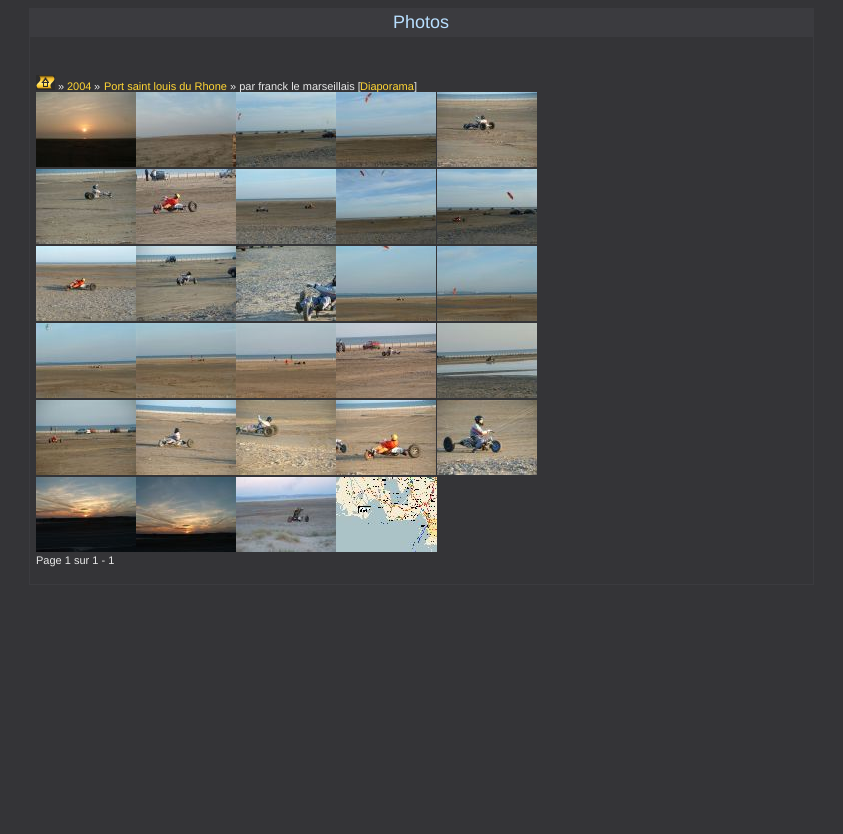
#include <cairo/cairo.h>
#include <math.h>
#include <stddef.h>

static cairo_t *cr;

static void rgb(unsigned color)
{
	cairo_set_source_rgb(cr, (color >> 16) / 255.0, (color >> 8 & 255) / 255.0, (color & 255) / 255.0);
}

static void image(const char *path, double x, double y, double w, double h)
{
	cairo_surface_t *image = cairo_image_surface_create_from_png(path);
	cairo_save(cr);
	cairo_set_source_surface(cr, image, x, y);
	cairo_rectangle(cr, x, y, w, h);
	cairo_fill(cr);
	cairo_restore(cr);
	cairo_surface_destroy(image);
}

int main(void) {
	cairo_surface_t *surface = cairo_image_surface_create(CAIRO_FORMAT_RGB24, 843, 834);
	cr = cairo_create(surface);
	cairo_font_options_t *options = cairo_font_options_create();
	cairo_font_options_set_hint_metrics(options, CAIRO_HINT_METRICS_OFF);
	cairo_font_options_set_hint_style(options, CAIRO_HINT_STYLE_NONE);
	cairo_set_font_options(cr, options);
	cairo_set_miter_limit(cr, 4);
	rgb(0x343437);
	cairo_paint(cr);
	rgb(0x3b3b3f);
	cairo_rectangle(cr, 29, 8, 785, 577);
	cairo_fill(cr);
	rgb(0x343437);
	cairo_rectangle(cr, 30, 37, 783, 547);
	cairo_fill(cr);
	image("img/1.png", 36, 75, 19, 15);
	image("img/2.png", 36, 92, 100, 75);
	image("img/6.png", 437, 92, 100, 75);
	image("img/7.png", 36, 169, 100, 75);
	image("img/8.png", 136, 169, 100, 75);
	image("img/9.png", 236, 169, 100, 75);
	image("img/10.png", 336, 169, 100, 75);
	image("img/11.png", 437, 169, 100, 75);
	image("img/12.png", 36, 246, 100, 75);
	image("img/13.png", 136, 246, 100, 75);
	image("img/14.png", 236, 246, 100, 75);
	image("img/15.png", 336, 246, 100, 75);
	image("img/16.png", 437, 246, 100, 75);
	image("img/17.png", 36, 323, 100, 75);
	image("img/18.png", 136, 323, 100, 75);
	image("img/19.png", 236, 323, 100, 75);
	image("img/20.png", 336, 323, 100, 75);
	image("img/21.png", 437, 323, 100, 75);
	image("img/22.png", 36, 400, 100, 75);
	image("img/23.png", 136, 400, 100, 75);
	image("img/24.png", 236, 400, 100, 75);
	image("img/25.png", 336, 400, 100, 75);
	image("img/26.png", 437, 400, 100, 75);
	image("img/27.png", 36, 477, 100, 75);
	image("img/28.png", 136, 477, 100, 75);
	image("img/29.png", 236, 477, 100, 75);
	image("img/30.png", 336, 477, 101, 75);
	cairo_select_font_face(cr, "Liberation Sans", CAIRO_FONT_SLANT_NORMAL, CAIRO_FONT_WEIGHT_NORMAL);
	cairo_set_font_size(cr, 18);
	rgb(0xb8dfff);
	cairo_move_to(cr, 393, 28);
	cairo_show_text(cr, "Photos");
	cairo_set_font_size(cr, 11);
	rgb(0xe7e7e7);
	cairo_move_to(cr, 58, 90);
	cairo_show_text(cr, "»");
	rgb(0xffd533);
	cairo_move_to(cr, 67, 90);
	cairo_show_text(cr, "2004");
	rgb(0xe7e7e7);
	cairo_move_to(cr, 94, 90);
	cairo_show_text(cr, "»");
	rgb(0xffd533);
	cairo_move_to(cr, 104, 90);
	cairo_show_text(cr, "Port saint louis du Rhone");
	rgb(0xe7e7e7);
	cairo_move_to(cr, 230, 90);
	cairo_show_text(cr, "» par franck le marseillais [");
	rgb(0xffd533);
	cairo_move_to(cr, 360, 90);
	cairo_show_text(cr, "Diaporama");
	rgb(0xe7e7e7);
	cairo_move_to(cr, 414, 90);
	cairo_show_text(cr, "]");
	image("img/3.png", 136, 92, 100, 75);
	image("img/4.png", 236, 92, 100, 75);
	image("img/5.png", 336, 92, 100, 75);
	cairo_move_to(cr, 36, 564);
	cairo_show_text(cr, "Page 1 sur 1 - 1");
	cairo_surface_write_to_png(surface, "page.png");
	cairo_font_options_destroy(options);
	cairo_destroy(cr);
	cairo_surface_destroy(surface);
	return 0;
}
